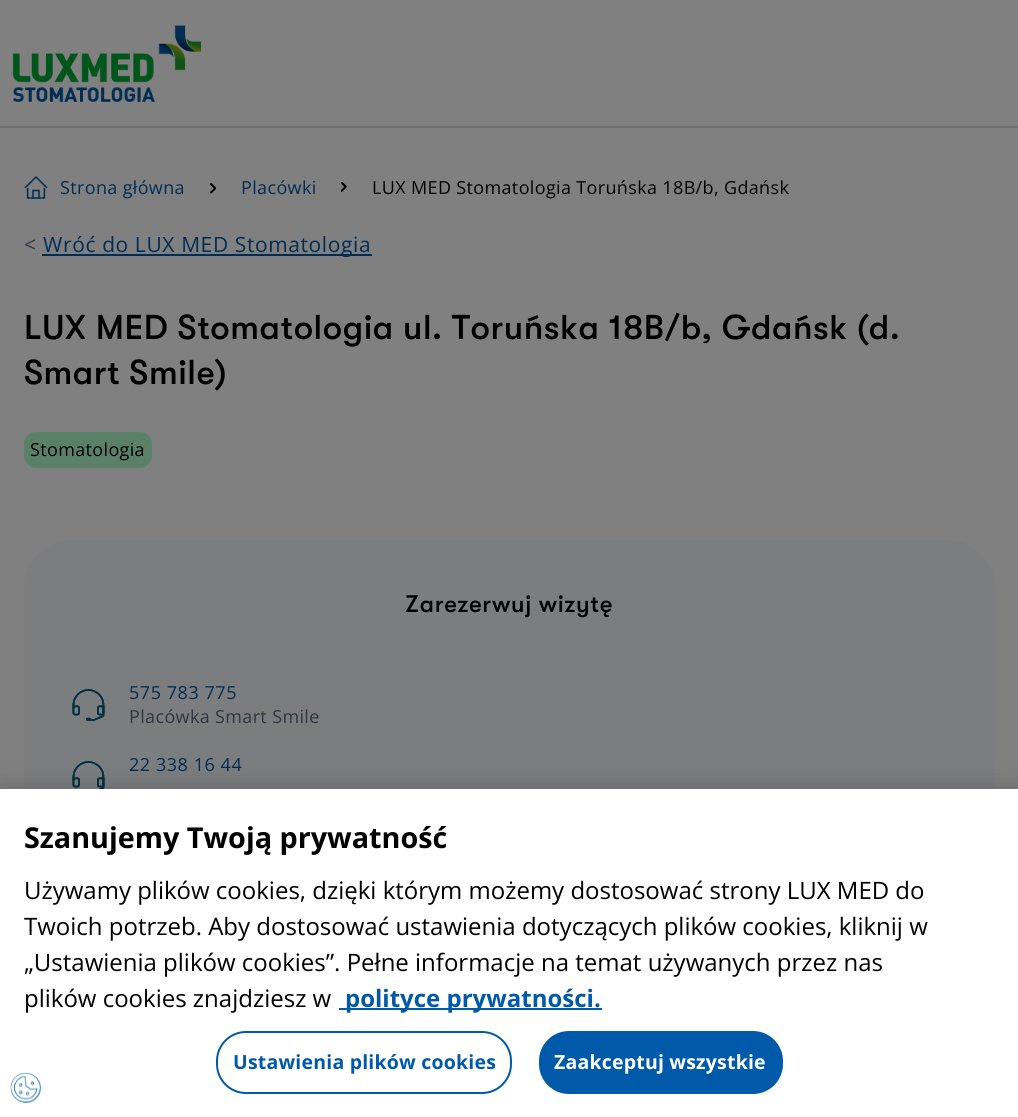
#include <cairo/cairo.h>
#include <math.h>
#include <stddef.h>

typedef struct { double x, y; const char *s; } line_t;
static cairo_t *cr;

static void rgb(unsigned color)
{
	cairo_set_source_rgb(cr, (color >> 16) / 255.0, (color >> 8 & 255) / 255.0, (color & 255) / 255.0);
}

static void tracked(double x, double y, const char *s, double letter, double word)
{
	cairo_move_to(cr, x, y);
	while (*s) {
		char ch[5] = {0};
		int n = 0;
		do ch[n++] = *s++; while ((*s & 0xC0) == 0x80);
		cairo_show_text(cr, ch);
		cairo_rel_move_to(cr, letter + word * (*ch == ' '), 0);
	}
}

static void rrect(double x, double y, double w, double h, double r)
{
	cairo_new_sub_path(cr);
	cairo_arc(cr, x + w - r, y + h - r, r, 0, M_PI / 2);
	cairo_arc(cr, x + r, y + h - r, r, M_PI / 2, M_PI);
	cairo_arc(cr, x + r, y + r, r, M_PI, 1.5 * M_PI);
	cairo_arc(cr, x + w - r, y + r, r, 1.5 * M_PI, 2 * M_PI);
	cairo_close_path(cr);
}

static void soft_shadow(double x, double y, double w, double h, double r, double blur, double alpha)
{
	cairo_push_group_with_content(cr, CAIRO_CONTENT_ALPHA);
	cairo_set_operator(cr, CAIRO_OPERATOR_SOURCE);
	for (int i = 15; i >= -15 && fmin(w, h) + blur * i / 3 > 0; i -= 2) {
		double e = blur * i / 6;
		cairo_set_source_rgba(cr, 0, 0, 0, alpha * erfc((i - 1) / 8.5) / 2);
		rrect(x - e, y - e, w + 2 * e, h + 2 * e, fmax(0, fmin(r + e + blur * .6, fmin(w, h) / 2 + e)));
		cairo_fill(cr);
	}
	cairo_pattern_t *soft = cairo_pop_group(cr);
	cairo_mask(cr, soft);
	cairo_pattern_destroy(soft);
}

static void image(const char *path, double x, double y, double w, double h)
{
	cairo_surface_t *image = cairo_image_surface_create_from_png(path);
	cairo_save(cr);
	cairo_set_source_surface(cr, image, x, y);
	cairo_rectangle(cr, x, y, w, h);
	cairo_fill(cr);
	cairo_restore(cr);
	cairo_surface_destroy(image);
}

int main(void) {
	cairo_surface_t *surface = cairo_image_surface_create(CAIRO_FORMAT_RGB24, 1018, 1117);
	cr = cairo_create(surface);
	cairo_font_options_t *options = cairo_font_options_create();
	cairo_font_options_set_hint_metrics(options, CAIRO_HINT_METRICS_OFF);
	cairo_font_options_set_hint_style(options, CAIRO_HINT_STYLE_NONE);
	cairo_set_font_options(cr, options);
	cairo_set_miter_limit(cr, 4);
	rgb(0x808080);
	cairo_paint(cr);
	rgb(0x707070);
	cairo_rectangle(cr, 0, 126, 1018, 2);
	cairo_fill(cr);
	image("img/1.png", 12, 25, 189, 77);
	image("img/2.png", 24, 176, 24, 23);
	image("img/3.png", 210, 183, 6, 11);
	image("img/4.png", 341, 182, 6, 10);
	rgb(0x002d55);
	cairo_rectangle(cr, 42, 254, 330, 2);
	cairo_fill(cr);
	rgb(0x5b8068);
	rrect(24, 432, 128, 36, 12);
	cairo_fill(cr);
	rgb(0x7c7d7f);
	rrect(24, 540, 971, 309, 48);
	cairo_fill(cr);
	image("img/5.png", 72, 689, 33, 32);
	image("img/6.png", 72, 761, 33, 28);
	rgb(0x000000);
	soft_shadow(0, 789, 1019, 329, 0, 13.5, 0.2);
	rgb(0xffffff);
	cairo_rectangle(cr, 0, 789, 1018, 328);
	cairo_fill(cr);
	rgb(0x005aa9);
	cairo_rectangle(cr, 339, 1008, 263, 2);
	cairo_fill(cr);
	rrect(217, 1032, 294, 61, 29);
	cairo_stroke(cr);
	rrect(540, 1032, 242, 61, 29);
	cairo_fill_preserve(cr);
	cairo_stroke(cr);
	cairo_save(cr);
	rrect(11, 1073, 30, 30, 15);
	cairo_clip(cr);
	rgb(0x000000);
	soft_shadow(11, 1079, 30, 30, 15, 6, 0.2);
	cairo_restore(cr);
	rgb(0x6aaae4);
	cairo_arc(cr, 26, 1088, 15, 0, 2 * M_PI);
	cairo_fill(cr);
	image("img/7.png", 10, 1073, 31, 30);
	cairo_select_font_face(cr, "Open Sans", CAIRO_FONT_SLANT_NORMAL, CAIRO_FONT_WEIGHT_NORMAL);
	cairo_set_font_size(cr, 18);
	rgb(0x002d55);
	tracked(60, 194, "Strona główna", 0.35, 0);
	tracked(241, 194, "Placówki", 0.35, 0);
	rgb(0x000000);
	tracked(372, 194, "LUX MED Stomatologia Toruńska 18B/b, Gdańsk", 0.35, 0);
	cairo_set_font_size(cr, 21);
	rgb(0x30363f);
	tracked(24, 252, "<", 0.6, 0);
	rgb(0x002d55);
	tracked(43, 252, "Wróć do LUX MED Stomatologia", 0.6, 0);
	cairo_select_font_face(cr, "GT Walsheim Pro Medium", CAIRO_FONT_SLANT_NORMAL, CAIRO_FONT_WEIGHT_NORMAL);
	cairo_set_font_size(cr, 34.5);
	rgb(0x000000);
	tracked(24, 339, "LUX MED Stomatologia ul. Toruńska 18B/b, Gdańsk (d.", 0.55, 0);
	tracked(24, 384, "Smart Smile)", 0.55, 0);
	cairo_select_font_face(cr, "Open Sans", CAIRO_FONT_SLANT_NORMAL, CAIRO_FONT_WEIGHT_NORMAL);
	cairo_set_font_size(cr, 18);
	tracked(30, 456, "Stomatologia", 0.35, 0);
	cairo_select_font_face(cr, "GT Walsheim Pro Medium", CAIRO_FONT_SLANT_NORMAL, CAIRO_FONT_WEIGHT_NORMAL);
	cairo_set_font_size(cr, 24);
	tracked(405, 612, "Zarezerwuj wizytę", 0.75, 0);
	cairo_select_font_face(cr, "Open Sans", CAIRO_FONT_SLANT_NORMAL, CAIRO_FONT_WEIGHT_NORMAL);
	cairo_set_font_size(cr, 18);
	rgb(0x002d55);
	tracked(129, 699, "575 783 775", 0.55, 0);
	rgb(0x30363f);
	tracked(129, 723, "Placówka Smart Smile", 0.35, 0);
	rgb(0x002d55);
	tracked(129, 771, "22 338 16 44", 0.55, 0);
	cairo_select_font_face(cr, "Open Sans", CAIRO_FONT_SLANT_NORMAL, CAIRO_FONT_WEIGHT_BOLD);
	cairo_set_font_size(cr, 28.75);
	rgb(0x000000);
	cairo_move_to(cr, 24, 848);
	cairo_show_text(cr, "Szanujemy Twoją prywatność");
	cairo_select_font_face(cr, "Open Sans", CAIRO_FONT_SLANT_NORMAL, CAIRO_FONT_WEIGHT_NORMAL);
	cairo_set_font_size(cr, 24);
	{
		static const line_t items[] = {
			{24, 899, "Używamy plików cookies, dzięki którym możemy dostosować strony LUX MED do"},
			{24, 935, "Twoich potrzeb. Aby dostosować ustawienia dotyczących plików cookies, kliknij w"},
			{24, 971, "„Ustawienia plików cookies”. Pełne informacje na temat używanych przez nas"},
			{24, 1007, "plików cookies znajdziesz w"},
		};
		for (size_t i = 0; i < sizeof items / sizeof *items; i++) {
			cairo_move_to(cr, items[i].x, items[i].y);
			cairo_show_text(cr, items[i].s);
		}
	}
	cairo_select_font_face(cr, "Open Sans", CAIRO_FONT_SLANT_NORMAL, CAIRO_FONT_WEIGHT_BOLD);
	rgb(0x005aa9);
	cairo_move_to(cr, 345, 1007);
	cairo_show_text(cr, "polityce prywatności.");
	cairo_set_font_size(cr, 19.5);
	tracked(233, 1069, "Ustawienia plików cookies", 0.2, 0);
	rgb(0xffffff);
	tracked(554, 1069, "Zaakceptuj wszystkie", 0.2, 0);
	cairo_surface_write_to_png(surface, "page.png");
	cairo_font_options_destroy(options);
	cairo_destroy(cr);
	cairo_surface_destroy(surface);
	return 0;
}
